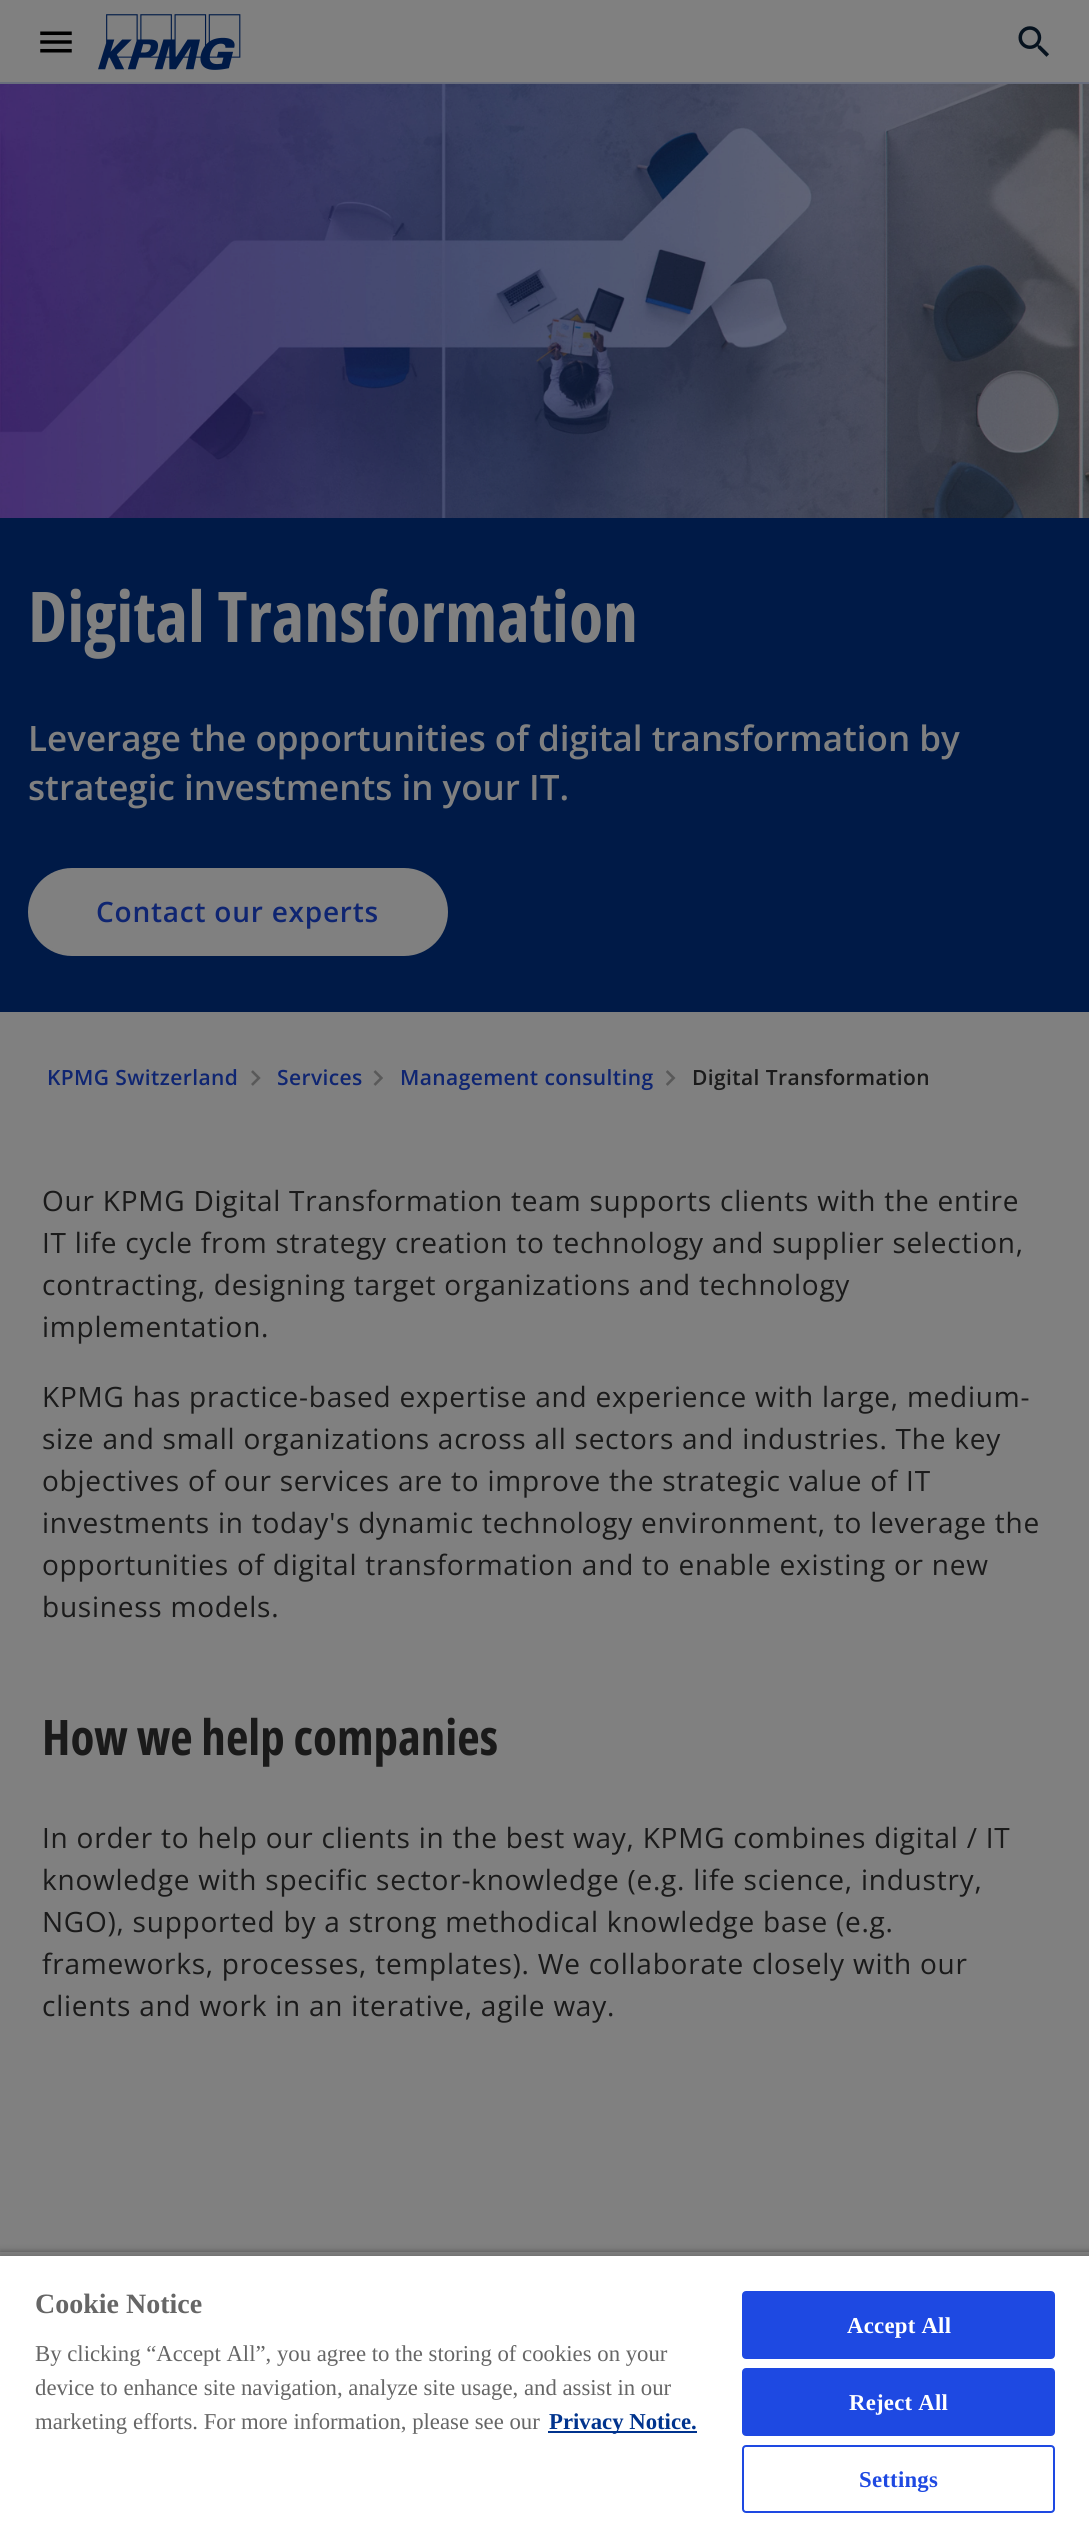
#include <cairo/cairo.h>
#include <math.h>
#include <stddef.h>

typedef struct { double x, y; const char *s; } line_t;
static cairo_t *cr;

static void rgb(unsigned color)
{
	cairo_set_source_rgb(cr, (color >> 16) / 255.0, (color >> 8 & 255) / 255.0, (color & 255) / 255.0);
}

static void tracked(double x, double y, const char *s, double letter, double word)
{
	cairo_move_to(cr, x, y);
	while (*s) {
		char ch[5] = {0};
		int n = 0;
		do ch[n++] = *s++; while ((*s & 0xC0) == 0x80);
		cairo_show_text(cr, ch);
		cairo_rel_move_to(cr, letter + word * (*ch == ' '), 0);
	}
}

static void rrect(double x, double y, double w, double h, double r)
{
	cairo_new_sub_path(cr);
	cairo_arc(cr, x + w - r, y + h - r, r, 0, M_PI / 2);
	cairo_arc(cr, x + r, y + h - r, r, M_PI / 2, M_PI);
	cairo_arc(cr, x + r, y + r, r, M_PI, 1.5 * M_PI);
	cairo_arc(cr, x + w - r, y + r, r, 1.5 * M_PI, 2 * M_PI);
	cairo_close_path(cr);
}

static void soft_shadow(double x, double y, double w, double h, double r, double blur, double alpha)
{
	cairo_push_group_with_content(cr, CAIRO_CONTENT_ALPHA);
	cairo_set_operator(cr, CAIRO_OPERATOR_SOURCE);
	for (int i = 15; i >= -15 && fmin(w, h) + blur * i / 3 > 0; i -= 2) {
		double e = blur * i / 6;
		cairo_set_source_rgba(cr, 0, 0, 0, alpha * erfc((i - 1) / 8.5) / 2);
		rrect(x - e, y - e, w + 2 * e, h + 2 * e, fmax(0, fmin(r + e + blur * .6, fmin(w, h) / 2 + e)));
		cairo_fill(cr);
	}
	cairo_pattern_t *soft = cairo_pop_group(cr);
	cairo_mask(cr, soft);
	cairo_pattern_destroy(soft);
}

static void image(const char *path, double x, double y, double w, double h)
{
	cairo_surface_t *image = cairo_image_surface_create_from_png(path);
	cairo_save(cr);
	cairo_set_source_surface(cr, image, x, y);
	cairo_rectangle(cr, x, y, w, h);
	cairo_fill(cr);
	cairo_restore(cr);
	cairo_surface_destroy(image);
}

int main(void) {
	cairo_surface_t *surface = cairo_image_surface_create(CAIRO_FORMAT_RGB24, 1089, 2540);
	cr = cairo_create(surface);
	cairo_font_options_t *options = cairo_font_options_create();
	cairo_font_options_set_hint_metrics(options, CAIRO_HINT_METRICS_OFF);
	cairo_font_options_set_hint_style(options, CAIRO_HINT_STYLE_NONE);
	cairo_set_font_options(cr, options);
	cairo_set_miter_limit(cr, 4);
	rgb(0x808080);
	cairo_paint(cr);
	rgb(0x696e7d);
	cairo_rectangle(cr, 0, 82, 1089, 2);
	cairo_fill(cr);
	image("img/1.png", 40, 31, 32, 22);
	image("img/2.png", 98, 14, 143, 56);
	image("img/3.png", 1018, 26, 31, 31);
	image("img/4.png", 0, 84, 1089, 434);
	rgb(0x001a47);
	cairo_rectangle(cr, 0, 518, 1089, 494);
	cairo_fill(cr);
	rgb(0x808080);
	rrect(29, 869, 418, 86, 43);
	cairo_fill_preserve(cr);
	cairo_stroke(cr);
	image("img/5.png", 251, 1070, 10, 16);
	image("img/6.png", 373, 1070, 10, 16);
	image("img/7.png", 666, 1070, 10, 16);
	cairo_save(cr);
	cairo_set_fill_rule(cr, CAIRO_FILL_RULE_EVEN_ODD);
	cairo_new_path(cr);
	cairo_move_to(cr, 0, 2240);
	cairo_line_to(cr, 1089, 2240);
	cairo_line_to(cr, 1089, 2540);
	cairo_line_to(cr, 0, 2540);
	cairo_close_path(cr);
	cairo_move_to(cr, 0, 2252);
	cairo_line_to(cr, 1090, 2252);
	cairo_line_to(cr, 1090, 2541);
	cairo_line_to(cr, 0, 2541);
	cairo_close_path(cr);
	cairo_clip(cr);
	rgb(0x000000);
	soft_shadow(0, 2252, 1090, 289, 0, 3.5, 0.35);
	cairo_restore(cr);
	rgb(0x000000);
	soft_shadow(0, 2256, 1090, 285, 0, 3.5, 0.2);
	rgb(0xffffff);
	cairo_rectangle(cr, 0, 2256, 1089, 284);
	cairo_fill(cr);
	rgb(0x00338d);
	cairo_rectangle(cr, 548, 2431, 149, 2);
	cairo_fill(cr);
	rgb(0x1e49e2);
	rrect(743, 2292, 311, 66, 3);
	cairo_fill_preserve(cr);
	cairo_stroke(cr);
	rrect(743, 2369, 311, 66, 3);
	cairo_fill_preserve(cr);
	cairo_stroke(cr);
	rrect(743, 2446, 311, 66, 3);
	cairo_stroke(cr);
	cairo_select_font_face(cr, "Open Sans Condensed", CAIRO_FONT_SLANT_NORMAL, CAIRO_FONT_WEIGHT_BOLD);
	cairo_set_font_size(cr, 70);
	rgb(0x808080);
	cairo_move_to(cr, 28, 642);
	cairo_show_text(cr, "Digital Transformation");
	cairo_select_font_face(cr, "Open Sans SemiBold", CAIRO_FONT_SLANT_NORMAL, CAIRO_FONT_WEIGHT_NORMAL);
	cairo_set_font_size(cr, 35);
	cairo_move_to(cr, 28, 751);
	cairo_show_text(cr, "Leverage the opportunities of digital transformation by");
	cairo_move_to(cr, 28, 800);
	cairo_show_text(cr, "strategic investments in your IT.");
	cairo_set_font_size(cr, 28);
	rgb(0x0f2571);
	tracked(96, 922, "Contact our experts", 0.77, 0);
	cairo_set_font_size(cr, 21);
	{
		static const line_t items[] = {
			{47, 1085, "KPMG Switzerland"},
			{277, 1085, "Services"},
			{400, 1085, "Management consulting"},
		};
		for (size_t i = 0; i < sizeof items / sizeof *items; i++) {
			tracked(items[i].x, items[i].y, items[i].s, 0.4, 0);
		}
	}
	rgb(0x1a1a1a);
	tracked(692, 1085, "Digital Transformation", 0.4, 0);
	cairo_select_font_face(cr, "Open Sans", CAIRO_FONT_SLANT_NORMAL, CAIRO_FONT_WEIGHT_NORMAL);
	cairo_set_font_size(cr, 28);
	{
		static const line_t items[] = {
			{42, 1211, "Our KPMG Digital Transformation team supports clients with the entire"},
			{42, 1253, "IT life cycle from strategy creation to technology and supplier selection,"},
			{42, 1295, "contracting, designing target organizations and technology"},
			{42, 1337, "implementation."},
			{42, 1407, "KPMG has practice-based expertise and experience with large, medium-"},
			{42, 1449, "size and small organizations across all sectors and industries. The key"},
			{42, 1491, "objectives of our services are to improve the strategic value of IT"},
			{42, 1533, "investments in today's dynamic technology environment, to leverage the"},
			{42, 1575, "opportunities of digital transformation and to enable existing or new"},
			{42, 1617, "business models."},
		};
		for (size_t i = 0; i < sizeof items / sizeof *items; i++) {
			tracked(items[i].x, items[i].y, items[i].s, 0.77, 0);
		}
	}
	cairo_select_font_face(cr, "Open Sans Condensed", CAIRO_FONT_SLANT_NORMAL, CAIRO_FONT_WEIGHT_BOLD);
	cairo_set_font_size(cr, 49);
	cairo_move_to(cr, 42, 1755);
	cairo_show_text(cr, "How we help companies");
	cairo_select_font_face(cr, "Open Sans", CAIRO_FONT_SLANT_NORMAL, CAIRO_FONT_WEIGHT_NORMAL);
	cairo_set_font_size(cr, 28);
	{
		static const line_t items[] = {
			{42, 1848, "In order to help our clients in the best way, KPMG combines digital / IT"},
			{42, 1890, "knowledge with specific sector-knowledge (e.g. life science, industry,"},
			{42, 1932, "NGO), supported by a strong methodical knowledge base (e.g."},
			{42, 1974, "frameworks, processes, templates). We collaborate closely with our"},
			{42, 2016, "clients and work in an iterative, agile way."},
		};
		for (size_t i = 0; i < sizeof items / sizeof *items; i++) {
			tracked(items[i].x, items[i].y, items[i].s, 0.77, 0);
		}
	}
	cairo_select_font_face(cr, "Liberation Serif", CAIRO_FONT_SLANT_NORMAL, CAIRO_FONT_WEIGHT_BOLD);
	rgb(0x666666);
	cairo_move_to(cr, 35, 2313);
	cairo_show_text(cr, "Cookie Notice");
	cairo_select_font_face(cr, "Liberation Serif", CAIRO_FONT_SLANT_NORMAL, CAIRO_FONT_WEIGHT_NORMAL);
	cairo_set_font_size(cr, 22.75);
	{
		static const line_t items[] = {
			{35, 2361, "By clicking “Accept All”, you agree to the storing of cookies on your"},
			{35, 2395, "device to enhance site navigation, analyze site usage, and assist in our"},
			{35, 2429, "marketing efforts. For more information, please see our"},
		};
		for (size_t i = 0; i < sizeof items / sizeof *items; i++) {
			cairo_move_to(cr, items[i].x, items[i].y);
			cairo_show_text(cr, items[i].s);
		}
	}
	cairo_select_font_face(cr, "Liberation Serif", CAIRO_FONT_SLANT_NORMAL, CAIRO_FONT_WEIGHT_BOLD);
	rgb(0x00338d);
	cairo_move_to(cr, 549, 2429);
	cairo_show_text(cr, "Privacy Notice.");
	rgb(0xffffff);
	tracked(847, 2333, "Accept All", 0.25, 0);
	tracked(849, 2410, "Reject All", 0.25, 0);
	rgb(0x1e49e2);
	tracked(859, 2487, "Settings", 0.25, 0);
	cairo_surface_write_to_png(surface, "page.png");
	cairo_font_options_destroy(options);
	cairo_destroy(cr);
	cairo_surface_destroy(surface);
	return 0;
}
